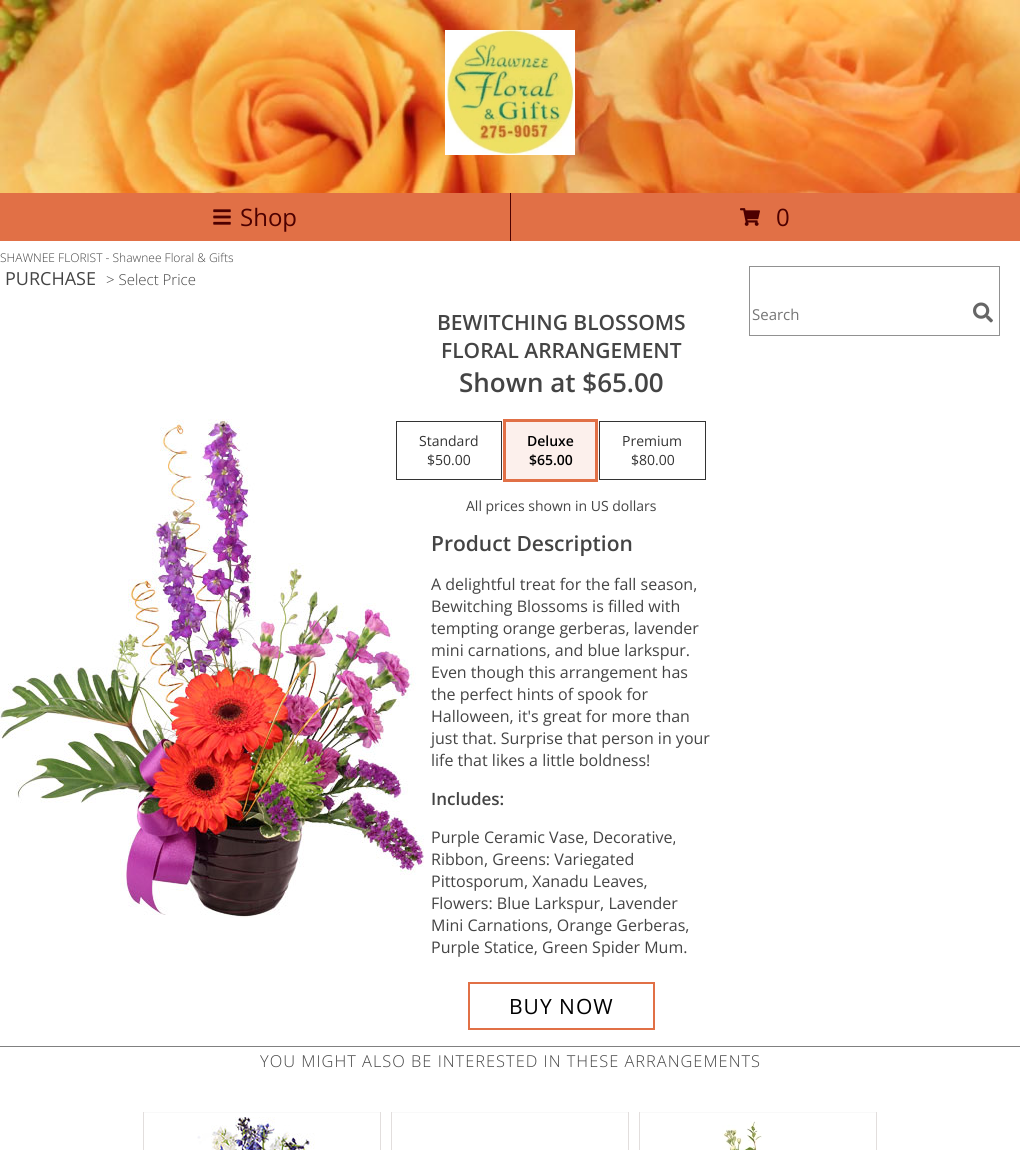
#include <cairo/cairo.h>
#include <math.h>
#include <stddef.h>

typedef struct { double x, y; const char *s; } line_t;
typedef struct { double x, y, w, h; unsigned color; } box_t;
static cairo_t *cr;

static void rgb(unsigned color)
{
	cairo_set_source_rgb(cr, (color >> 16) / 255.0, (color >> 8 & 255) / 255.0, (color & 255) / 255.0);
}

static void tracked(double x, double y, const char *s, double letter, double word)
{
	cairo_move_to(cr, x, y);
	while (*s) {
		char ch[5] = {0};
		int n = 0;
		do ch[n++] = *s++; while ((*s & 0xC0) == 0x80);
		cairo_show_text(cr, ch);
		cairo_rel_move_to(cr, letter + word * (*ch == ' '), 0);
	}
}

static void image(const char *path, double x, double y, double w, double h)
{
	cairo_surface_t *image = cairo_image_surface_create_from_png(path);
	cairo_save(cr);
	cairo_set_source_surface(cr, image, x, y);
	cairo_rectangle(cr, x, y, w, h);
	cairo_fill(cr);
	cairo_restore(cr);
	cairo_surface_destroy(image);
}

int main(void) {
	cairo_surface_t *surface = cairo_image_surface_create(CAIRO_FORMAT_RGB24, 1020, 1150);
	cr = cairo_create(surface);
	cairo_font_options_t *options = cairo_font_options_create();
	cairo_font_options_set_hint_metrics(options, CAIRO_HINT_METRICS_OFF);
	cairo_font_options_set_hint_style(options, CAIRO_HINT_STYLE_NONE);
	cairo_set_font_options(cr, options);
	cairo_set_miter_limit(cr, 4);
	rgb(0xffffff);
	cairo_paint(cr);
	image("img/1.png", 0, 0, 1020, 193);
	image("img/2.png", 445, 30, 130, 125);
	rgb(0x4d0000);
	cairo_rectangle(cr, 510, 193, 1, 48);
	cairo_fill(cr);
	rgb(0xe17046);
	cairo_rectangle(cr, 0, 193, 510, 48);
	cairo_fill(cr);
	image("img/3.png", 213, 209, 18, 16);
	cairo_rectangle(cr, 511, 193, 509, 48);
	cairo_fill(cr);
	image("img/4.png", 740, 208, 20, 18);
	cairo_rectangle(cr, 749.5, 266.5, 250, 69);
	rgb(0x919191);
	cairo_set_line_width(cr, 1);
	cairo_stroke(cr);
	image("img/5.png", 973, 302, 20, 21);
	image("img/6.png", 0, 419, 424, 499);
	cairo_rectangle(cr, 396.5, 421.5, 105, 58);
	rgb(0x333333);
	cairo_stroke(cr);
	cairo_rectangle(cr, 504.5, 420.5, 92, 60);
	rgb(0xe17046);
	cairo_set_line_width(cr, 3);
	cairo_stroke(cr);
	rgb(0xfcf0ec);
	cairo_rectangle(cr, 506, 422, 89, 57);
	cairo_fill(cr);
	cairo_rectangle(cr, 599.5, 421.5, 106, 58);
	rgb(0x333333);
	cairo_set_line_width(cr, 1);
	cairo_stroke(cr);
	cairo_rectangle(cr, 469, 983, 185, 46);
	rgb(0xe17046);
	cairo_set_line_width(cr, 2);
	cairo_stroke(cr);
	{
		static const box_t items[] = {
			{0, 1046, 1020, 1, 0x808080},
			{143, 1112, 238, 1, 0xf9f9f9},
			{380, 1112, 1, 38, 0xe2dedd},
			{143, 1112, 1, 38, 0xe2dedd},
		};
		for (size_t i = 0; i < sizeof items / sizeof *items; i++) {
			rgb(items[i].color);
			cairo_rectangle(cr, items[i].x, items[i].y, items[i].w, items[i].h);
			cairo_fill(cr);
		}
	}
	image("img/7.png", 197, 1117, 118, 33);
	{
		static const box_t items[] = {
			{391, 1112, 238, 1, 0xf9f9f9},
			{628, 1112, 1, 38, 0xe2dedd},
			{391, 1112, 1, 38, 0xe2dedd},
			{639, 1112, 238, 1, 0xf9f9f9},
			{876, 1112, 1, 38, 0xe2dedd},
			{639, 1112, 1, 38, 0xe2dedd},
		};
		for (size_t i = 0; i < sizeof items / sizeof *items; i++) {
			rgb(items[i].color);
			cairo_rectangle(cr, items[i].x, items[i].y, items[i].w, items[i].h);
			cairo_fill(cr);
		}
	}
	image("img/8.png", 722, 1121, 40, 29);
	cairo_select_font_face(cr, "Open Sans", CAIRO_FONT_SLANT_NORMAL, CAIRO_FONT_WEIGHT_NORMAL);
	cairo_set_font_size(cr, 24);
	rgb(0x4d0000);
	cairo_move_to(cr, 240, 226);
	cairo_show_text(cr, "Shop");
	cairo_move_to(cr, 776, 226);
	cairo_show_text(cr, "0");
	cairo_select_font_face(cr, "Open Sans Light", CAIRO_FONT_SLANT_NORMAL, CAIRO_FONT_WEIGHT_NORMAL);
	cairo_set_font_size(cr, 12);
	rgb(0x444444);
	cairo_move_to(cr, 0, 262);
	cairo_show_text(cr, "SHAWNEE FLORIST - Shawnee Floral & Gifts");
	cairo_select_font_face(cr, "Open Sans", CAIRO_FONT_SLANT_NORMAL, CAIRO_FONT_WEIGHT_NORMAL);
	cairo_set_font_size(cr, 18);
	cairo_move_to(cr, 5, 285);
	cairo_show_text(cr, "PURCHASE");
	cairo_select_font_face(cr, "Open Sans Light", CAIRO_FONT_SLANT_NORMAL, CAIRO_FONT_WEIGHT_NORMAL);
	cairo_set_font_size(cr, 15);
	cairo_move_to(cr, 106, 285);
	cairo_show_text(cr, "> Select Price");
	cairo_select_font_face(cr, "Open Sans", CAIRO_FONT_SLANT_NORMAL, CAIRO_FONT_WEIGHT_NORMAL);
	rgb(0x757575);
	cairo_move_to(cr, 752, 320);
	cairo_show_text(cr, "Search");
	cairo_select_font_face(cr, "Open Sans SemiBold", CAIRO_FONT_SLANT_NORMAL, CAIRO_FONT_WEIGHT_NORMAL);
	cairo_set_font_size(cr, 21);
	rgb(0x444444);
	cairo_move_to(cr, 437, 330);
	cairo_show_text(cr, "BEWITCHING BLOSSOMS");
	cairo_move_to(cr, 441, 358);
	cairo_show_text(cr, "FLORAL ARRANGEMENT");
	cairo_set_font_size(cr, 26);
	cairo_move_to(cr, 459, 392);
	cairo_show_text(cr, "Shown at $65.00");
	cairo_select_font_face(cr, "Open Sans", CAIRO_FONT_SLANT_NORMAL, CAIRO_FONT_WEIGHT_NORMAL);
	cairo_set_font_size(cr, 14);
	rgb(0x333333);
	cairo_move_to(cr, 419, 446);
	cairo_show_text(cr, "Standard");
	cairo_move_to(cr, 427, 465);
	cairo_show_text(cr, "$50.00");
	cairo_select_font_face(cr, "Open Sans SemiBold", CAIRO_FONT_SLANT_NORMAL, CAIRO_FONT_WEIGHT_NORMAL);
	rgb(0x000000);
	cairo_move_to(cr, 527, 446);
	cairo_show_text(cr, "Deluxe");
	cairo_move_to(cr, 529, 465);
	cairo_show_text(cr, "$65.00");
	cairo_select_font_face(cr, "Open Sans", CAIRO_FONT_SLANT_NORMAL, CAIRO_FONT_WEIGHT_NORMAL);
	rgb(0x333333);
	cairo_move_to(cr, 622, 446);
	cairo_show_text(cr, "Premium");
	cairo_move_to(cr, 631, 465);
	cairo_show_text(cr, "$80.00");
	rgb(0x444444);
	cairo_move_to(cr, 466, 511);
	cairo_show_text(cr, "All prices shown in US dollars");
	cairo_select_font_face(cr, "Open Sans SemiBold", CAIRO_FONT_SLANT_NORMAL, CAIRO_FONT_WEIGHT_NORMAL);
	cairo_set_font_size(cr, 21);
	cairo_move_to(cr, 431, 551);
	cairo_show_text(cr, "Product Description");
	cairo_select_font_face(cr, "Open Sans", CAIRO_FONT_SLANT_NORMAL, CAIRO_FONT_WEIGHT_NORMAL);
	cairo_set_font_size(cr, 16);
	{
		static const line_t items[] = {
			{431, 590, "A delightful treat for the fall season,"},
			{431, 612, "Bewitching Blossoms is filled with"},
			{431, 634, "tempting orange gerberas, lavender"},
			{431, 656, "mini carnations, and blue larkspur."},
			{431, 678, "Even though this arrangement has"},
			{431, 700, "the perfect hints of spook for"},
			{431, 722, "Halloween, it's great for more than"},
			{431, 744, "just that. Surprise that person in your"},
			{431, 766, "life that likes a little boldness!"},
		};
		for (size_t i = 0; i < sizeof items / sizeof *items; i++) {
			cairo_move_to(cr, items[i].x, items[i].y);
			cairo_show_text(cr, items[i].s);
		}
	}
	cairo_select_font_face(cr, "Open Sans SemiBold", CAIRO_FONT_SLANT_NORMAL, CAIRO_FONT_WEIGHT_NORMAL);
	cairo_set_font_size(cr, 17);
	cairo_move_to(cr, 431, 805);
	cairo_show_text(cr, "Includes:");
	cairo_select_font_face(cr, "Open Sans", CAIRO_FONT_SLANT_NORMAL, CAIRO_FONT_WEIGHT_NORMAL);
	cairo_set_font_size(cr, 16);
	{
		static const line_t items[] = {
			{431, 843, "Purple Ceramic Vase, Decorative,"},
			{431, 865, "Ribbon, Greens: Variegated"},
			{431, 887, "Pittosporum, Xanadu Leaves,"},
			{431, 909, "Flowers: Blue Larkspur, Lavender"},
			{431, 931, "Mini Carnations, Orange Gerberas,"},
			{431, 953, "Purple Statice, Green Spider Mum."},
		};
		for (size_t i = 0; i < sizeof items / sizeof *items; i++) {
			cairo_move_to(cr, items[i].x, items[i].y);
			cairo_show_text(cr, items[i].s);
		}
	}
	cairo_set_font_size(cr, 21);
	rgb(0x000000);
	tracked(509, 1014, "BUY NOW", 1, 0);
	cairo_select_font_face(cr, "Open Sans Light", CAIRO_FONT_SLANT_NORMAL, CAIRO_FONT_WEIGHT_NORMAL);
	cairo_set_font_size(cr, 16.4);
	rgb(0x444444);
	tracked(260, 1067, "YOU MIGHT ALSO BE INTERESTED IN THESE ARRANGEMENTS", 1, 0);
	cairo_surface_write_to_png(surface, "page.png");
	cairo_font_options_destroy(options);
	cairo_destroy(cr);
	cairo_surface_destroy(surface);
	return 0;
}
